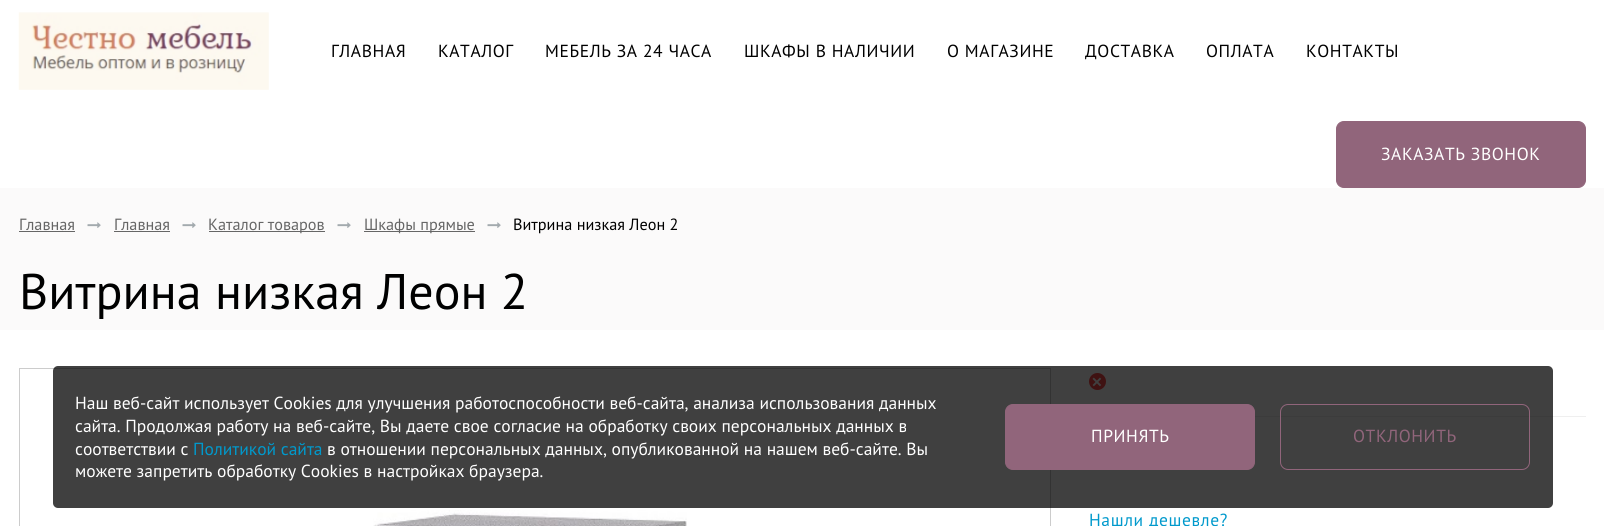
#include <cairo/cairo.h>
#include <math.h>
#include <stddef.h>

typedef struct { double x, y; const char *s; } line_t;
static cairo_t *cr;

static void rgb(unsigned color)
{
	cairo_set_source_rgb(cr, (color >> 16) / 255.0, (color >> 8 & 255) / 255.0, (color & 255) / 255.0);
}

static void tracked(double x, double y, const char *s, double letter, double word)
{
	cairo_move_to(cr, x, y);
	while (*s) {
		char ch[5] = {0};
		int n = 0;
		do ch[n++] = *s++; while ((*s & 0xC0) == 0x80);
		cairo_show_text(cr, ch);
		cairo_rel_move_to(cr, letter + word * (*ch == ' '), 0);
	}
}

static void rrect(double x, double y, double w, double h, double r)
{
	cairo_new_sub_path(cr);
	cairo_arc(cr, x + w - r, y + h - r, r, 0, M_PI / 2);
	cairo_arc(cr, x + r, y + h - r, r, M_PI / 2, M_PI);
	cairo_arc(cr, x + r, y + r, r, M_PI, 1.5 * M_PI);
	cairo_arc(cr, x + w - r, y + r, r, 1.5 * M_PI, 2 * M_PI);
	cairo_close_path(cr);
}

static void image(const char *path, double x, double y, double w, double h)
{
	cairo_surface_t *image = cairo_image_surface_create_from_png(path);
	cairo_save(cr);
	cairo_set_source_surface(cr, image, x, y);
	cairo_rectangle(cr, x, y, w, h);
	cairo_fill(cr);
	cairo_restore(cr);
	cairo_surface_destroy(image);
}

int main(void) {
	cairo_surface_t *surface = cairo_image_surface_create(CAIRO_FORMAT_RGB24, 1604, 526);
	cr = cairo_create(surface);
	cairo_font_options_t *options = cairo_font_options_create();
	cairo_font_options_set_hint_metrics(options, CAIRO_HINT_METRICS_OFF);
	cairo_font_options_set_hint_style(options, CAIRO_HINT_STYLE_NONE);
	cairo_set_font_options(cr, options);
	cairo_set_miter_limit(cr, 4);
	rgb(0xffffff);
	cairo_paint(cr);
	image("img/1.png", 18, 12, 251, 78);
	rgb(0x91657b);
	rrect(1336.5, 121.5, 249, 66, 7.5);
	cairo_fill_preserve(cr);
	cairo_set_line_width(cr, 1);
	cairo_stroke(cr);
	rgb(0xfbfafa);
	cairo_rectangle(cr, 0, 188, 1604, 142);
	cairo_fill(cr);
	rgb(0x666666);
	cairo_rectangle(cr, 19, 231, 56, 1);
	cairo_fill(cr);
	image("img/2.png", 87, 222, 14, 6);
	cairo_rectangle(cr, 114, 231, 56, 1);
	cairo_fill(cr);
	image("img/2.png", 182, 222, 14, 6);
	cairo_rectangle(cr, 209, 231, 116, 1);
	cairo_fill(cr);
	image("img/2.png", 337, 222, 14, 6);
	cairo_rectangle(cr, 364, 231, 111, 1);
	cairo_fill(cr);
	image("img/2.png", 487, 222, 14, 6);
	cairo_rectangle(cr, 19.5, 368.5, 1031, 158);
	rgb(0xcccccc);
	cairo_stroke(cr);
	image("img/3.png", 373, 510, 314, 16);
	rgb(0xfc4646);
	cairo_arc(cr, 1097.5, 381.5, 8.5, 0, 2 * M_PI);
	cairo_fill(cr);
	image("img/4.png", 1092, 377, 10, 10);
	rgb(0xefefef);
	cairo_rectangle(cr, 1255, 416, 331, 1);
	cairo_fill(cr);
	cairo_set_source_rgba(cr, 0, 0, 0, 0.75);
	rrect(53, 366, 1500, 142, 5);
	cairo_fill(cr);
	rgb(0x91657b);
	rrect(1005.5, 404.5, 249, 65, 7.5);
	cairo_fill_preserve(cr);
	cairo_stroke(cr);
	rrect(1280.5, 404.5, 249, 65, 7.5);
	cairo_stroke(cr);
	cairo_select_font_face(cr, "PT Sans", CAIRO_FONT_SLANT_NORMAL, CAIRO_FONT_WEIGHT_NORMAL);
	cairo_set_font_size(cr, 17.5);
	rgb(0x000000);
	{
		static const line_t items[] = {
			{331, 57, "ГЛАВНАЯ"},
			{438, 57, "КАТАЛОГ"},
			{545, 57, "МЕБЕЛЬ ЗА 24 ЧАСА"},
			{744, 57, "ШКАФЫ В НАЛИЧИИ"},
			{947, 57, "О МАГАЗИНЕ"},
			{1085, 57, "ДОСТАВКА"},
			{1206, 57, "ОПЛАТА"},
			{1306, 57, "КОНТАКТЫ"},
		};
		for (size_t i = 0; i < sizeof items / sizeof *items; i++) {
			tracked(items[i].x, items[i].y, items[i].s, 0.6, 0);
		}
	}
	rgb(0xffffff);
	tracked(1381, 160, "ЗАКАЗАТЬ ЗВОНОК", 0.6, 0);
	cairo_set_font_size(cr, 16.25);
	rgb(0x666666);
	{
		static const line_t items[] = {
			{19, 230, "Главная"},
			{114, 230, "Главная"},
			{208, 230, "Каталог товаров"},
			{364, 230, "Шкафы прямые"},
		};
		for (size_t i = 0; i < sizeof items / sizeof *items; i++) {
			cairo_move_to(cr, items[i].x, items[i].y);
			cairo_show_text(cr, items[i].s);
		}
	}
	rgb(0x000000);
	cairo_move_to(cr, 513, 230);
	cairo_show_text(cr, "Витрина низкая Леон 2");
	cairo_set_font_size(cr, 50);
	cairo_move_to(cr, 19, 309);
	cairo_show_text(cr, "Витрина низкая Леон 2");
	cairo_set_font_size(cr, 17.5);
	rgb(0x0099cc);
	tracked(1089, 526, "Нашли дешевле?", 0.6, 0);
	rgb(0xffffff);
	{
		static const line_t items[] = {
			{75, 409, "Наш веб-сайт использует Cookies для улучшения работоспособности веб-сайта, анализа использования данных"},
			{75, 432, "сайта. Продолжая работу на веб-сайте, Вы даете свое согласие на обработку своих персональных данных в"},
			{75, 455, "соответствии с"},
		};
		for (size_t i = 0; i < sizeof items / sizeof *items; i++) {
			cairo_move_to(cr, items[i].x, items[i].y);
			cairo_show_text(cr, items[i].s);
		}
	}
	rgb(0x0099cc);
	cairo_move_to(cr, 193, 455);
	cairo_show_text(cr, "Политикой сайта");
	rgb(0xffffff);
	cairo_move_to(cr, 327, 455);
	cairo_show_text(cr, "в отношении персональных данных, опубликованной на нашем веб-сайте. Вы");
	cairo_move_to(cr, 75, 477);
	cairo_show_text(cr, "можете запретить обработку Cookies в настройках браузера.");
	tracked(1091, 442, "ПРИНЯТЬ", 0.6, 0);
	rgb(0x91657b);
	tracked(1353, 442, "ОТКЛОНИТЬ", 0.6, 0);
	cairo_surface_write_to_png(surface, "page.png");
	cairo_font_options_destroy(options);
	cairo_destroy(cr);
	cairo_surface_destroy(surface);
	return 0;
}
